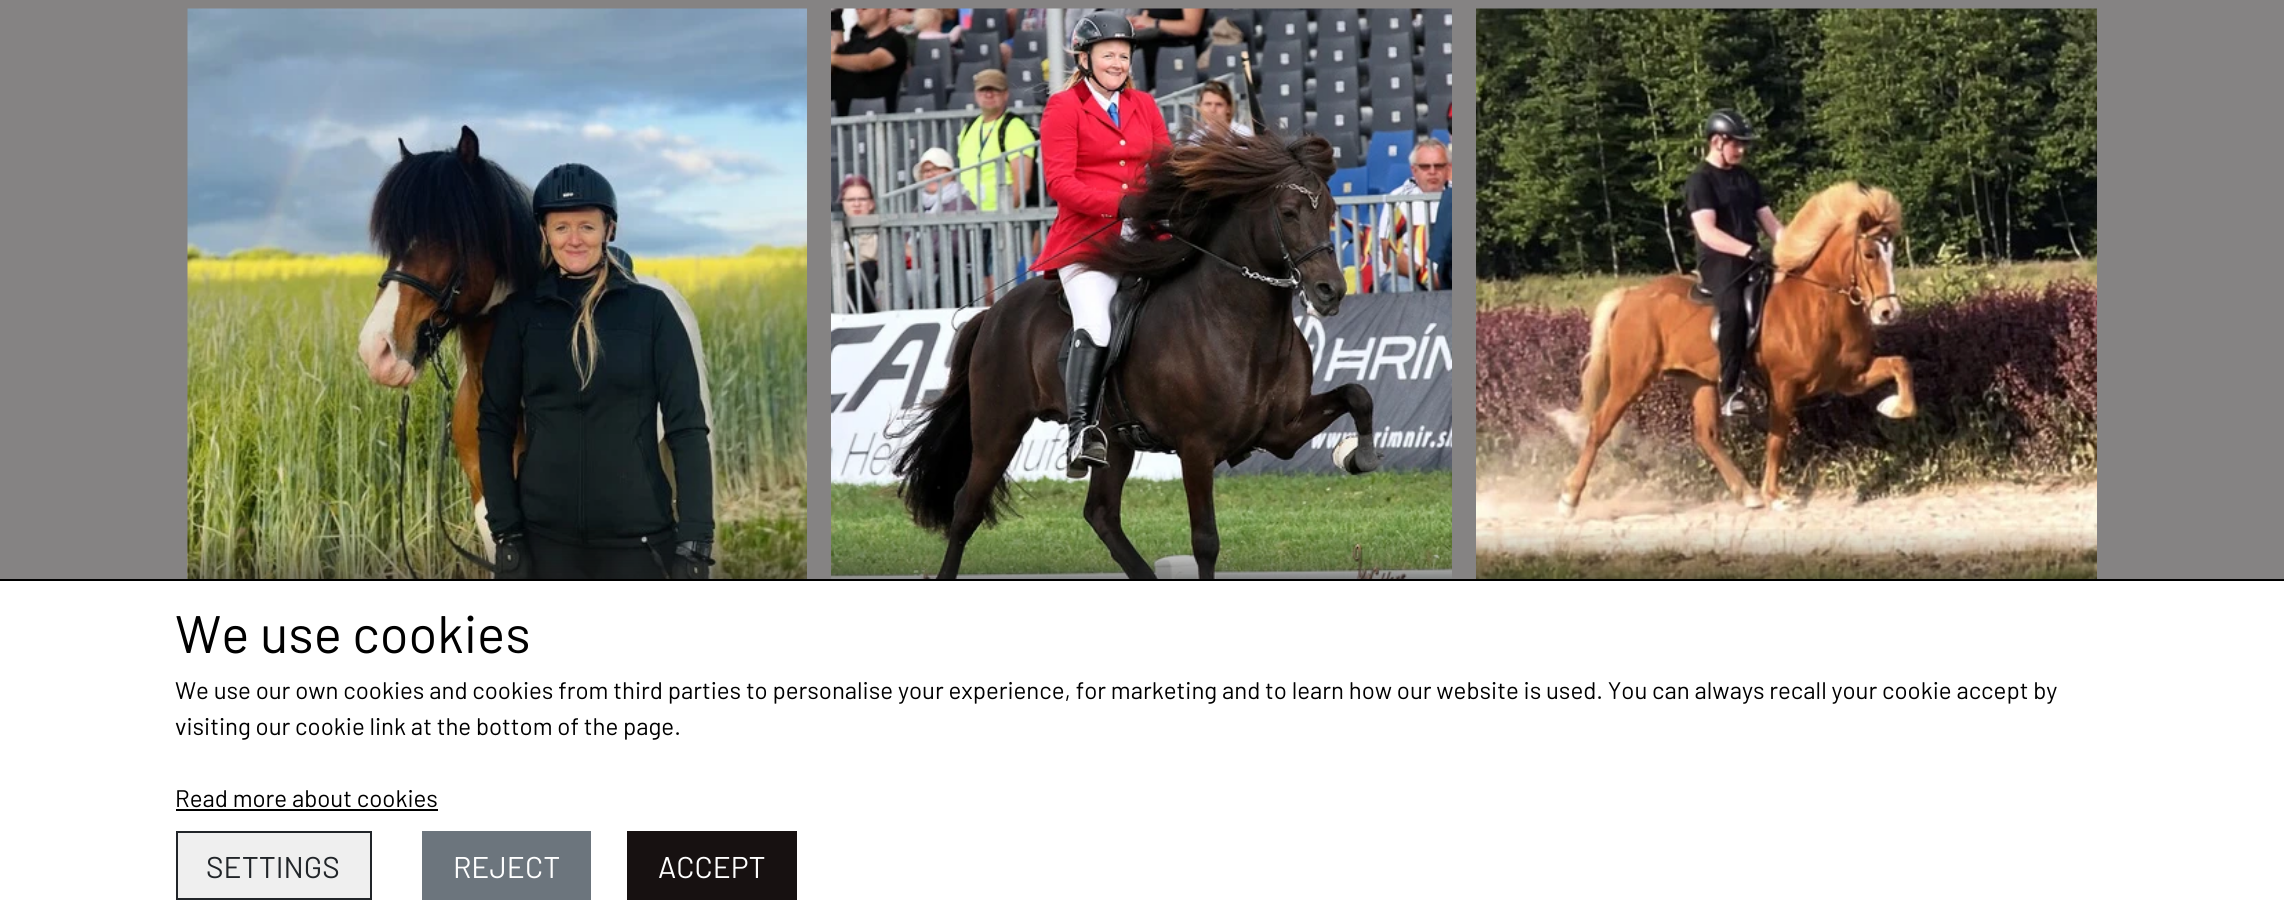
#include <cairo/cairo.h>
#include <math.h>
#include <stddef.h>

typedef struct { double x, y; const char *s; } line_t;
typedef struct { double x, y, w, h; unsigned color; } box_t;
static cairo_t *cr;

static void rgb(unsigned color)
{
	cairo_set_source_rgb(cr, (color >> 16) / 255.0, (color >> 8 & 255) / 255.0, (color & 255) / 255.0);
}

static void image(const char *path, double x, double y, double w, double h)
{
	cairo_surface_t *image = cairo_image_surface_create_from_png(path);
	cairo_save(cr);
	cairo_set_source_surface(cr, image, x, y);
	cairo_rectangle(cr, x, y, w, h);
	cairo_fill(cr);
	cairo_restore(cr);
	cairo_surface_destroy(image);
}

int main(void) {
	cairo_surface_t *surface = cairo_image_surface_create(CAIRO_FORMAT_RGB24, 2284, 911);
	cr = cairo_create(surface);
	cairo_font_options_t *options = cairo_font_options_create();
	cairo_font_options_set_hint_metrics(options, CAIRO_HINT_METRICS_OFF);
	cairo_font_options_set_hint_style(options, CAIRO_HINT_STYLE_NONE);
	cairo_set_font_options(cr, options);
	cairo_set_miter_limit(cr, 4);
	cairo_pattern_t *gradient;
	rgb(0x858383);
	cairo_paint(cr);
	image("img/1.png", 187, 8, 620, 571);
	gradient = cairo_pattern_create_linear(497, 527, 497, 630);
	cairo_pattern_add_color_stop_rgba(gradient, 0, 0.137, 0.137, 0.137, 0);
	cairo_pattern_add_color_stop_rgba(gradient, 1, 0.137, 0.137, 0.137, 1);
	cairo_set_source(cr, gradient);
	cairo_pattern_destroy(gradient);
	cairo_rectangle(cr, 188, 529, 619, 50);
	cairo_fill(cr);
	image("img/2.png", 831, 8, 621, 571);
	gradient = cairo_pattern_create_linear(1142, 527, 1142, 630);
	cairo_pattern_add_color_stop_rgba(gradient, 0, 0.137, 0.137, 0.137, 0);
	cairo_pattern_add_color_stop_rgba(gradient, 1, 0.137, 0.137, 0.137, 1);
	cairo_set_source(cr, gradient);
	cairo_pattern_destroy(gradient);
	cairo_rectangle(cr, 831, 529, 621, 50);
	cairo_fill(cr);
	image("img/3.png", 1476, 8, 621, 571);
	gradient = cairo_pattern_create_linear(1787, 527, 1787, 630);
	cairo_pattern_add_color_stop_rgba(gradient, 0, 0.137, 0.137, 0.137, 0);
	cairo_pattern_add_color_stop_rgba(gradient, 1, 0.137, 0.137, 0.137, 1);
	cairo_set_source(cr, gradient);
	cairo_pattern_destroy(gradient);
	cairo_rectangle(cr, 1476, 529, 621, 50);
	cairo_fill(cr);
	{
		static const box_t items[] = {
			{0, 581, 2284, 330, 0xffffff},
			{0, 579, 2284, 2, 0x000000},
			{176, 809, 262, 2, 0x000000},
		};
		for (size_t i = 0; i < sizeof items / sizeof *items; i++) {
			rgb(items[i].color);
			cairo_rectangle(cr, items[i].x, items[i].y, items[i].w, items[i].h);
			cairo_fill(cr);
		}
	}
	rgb(0xefefef);
	cairo_rectangle(cr, 177, 832, 194, 67);
	cairo_fill_preserve(cr);
	rgb(0x212529);
	cairo_stroke(cr);
	rgb(0x6c757d);
	cairo_rectangle(cr, 422, 831, 169, 69);
	cairo_fill(cr);
	rgb(0x171111);
	cairo_rectangle(cr, 627, 831, 170, 69);
	cairo_fill(cr);
	cairo_select_font_face(cr, "Barlow", CAIRO_FONT_SLANT_NORMAL, CAIRO_FONT_WEIGHT_NORMAL);
	cairo_set_font_size(cr, 52.75);
	rgb(0x000000);
	cairo_move_to(cr, 175, 653);
	cairo_show_text(cr, "We use cookies");
	cairo_set_font_size(cr, 24);
	{
		static const line_t items[] = {
			{175, 699, "We use our own cookies and cookies from third parties to personalise your experience, for marketing and to learn how our website is used. You can always recall your cookie accept by"},
			{175, 735, "visiting our cookie link at the bottom of the page."},
			{175, 807, "Read more about cookies"},
		};
		for (size_t i = 0; i < sizeof items / sizeof *items; i++) {
			cairo_move_to(cr, items[i].x, items[i].y);
			cairo_show_text(cr, items[i].s);
		}
	}
	cairo_set_font_size(cr, 30);
	rgb(0x212529);
	cairo_move_to(cr, 206, 878);
	cairo_show_text(cr, "SETTINGS");
	rgb(0xffffff);
	cairo_move_to(cr, 453, 878);
	cairo_show_text(cr, "REJECT");
	cairo_move_to(cr, 658, 878);
	cairo_show_text(cr, "ACCEPT");
	cairo_surface_write_to_png(surface, "page.png");
	cairo_font_options_destroy(options);
	cairo_destroy(cr);
	cairo_surface_destroy(surface);
	return 0;
}
